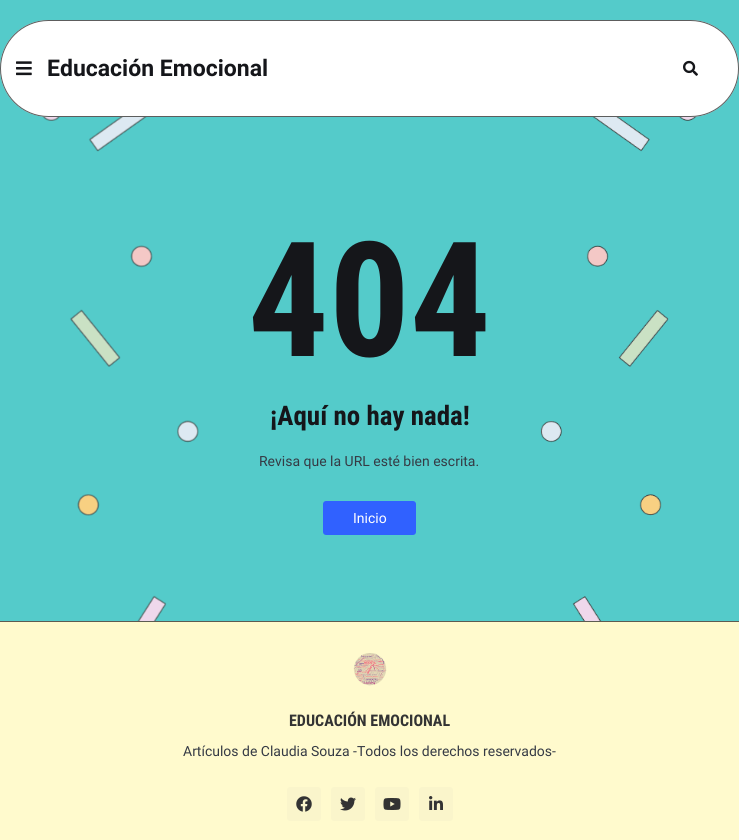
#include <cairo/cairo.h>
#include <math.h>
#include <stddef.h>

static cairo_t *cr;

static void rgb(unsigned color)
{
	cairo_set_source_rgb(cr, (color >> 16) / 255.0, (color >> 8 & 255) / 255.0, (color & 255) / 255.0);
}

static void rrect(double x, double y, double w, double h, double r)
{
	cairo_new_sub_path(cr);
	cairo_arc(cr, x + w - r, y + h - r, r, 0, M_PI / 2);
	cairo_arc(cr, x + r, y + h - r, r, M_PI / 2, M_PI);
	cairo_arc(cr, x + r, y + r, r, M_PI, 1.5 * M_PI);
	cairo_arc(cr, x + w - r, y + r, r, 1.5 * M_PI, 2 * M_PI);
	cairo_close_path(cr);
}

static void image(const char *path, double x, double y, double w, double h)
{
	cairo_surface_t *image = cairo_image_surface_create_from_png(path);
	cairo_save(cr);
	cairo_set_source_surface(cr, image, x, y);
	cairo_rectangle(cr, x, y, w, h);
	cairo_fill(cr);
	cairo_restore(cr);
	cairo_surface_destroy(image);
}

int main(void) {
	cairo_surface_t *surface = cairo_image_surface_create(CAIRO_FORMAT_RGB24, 739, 840);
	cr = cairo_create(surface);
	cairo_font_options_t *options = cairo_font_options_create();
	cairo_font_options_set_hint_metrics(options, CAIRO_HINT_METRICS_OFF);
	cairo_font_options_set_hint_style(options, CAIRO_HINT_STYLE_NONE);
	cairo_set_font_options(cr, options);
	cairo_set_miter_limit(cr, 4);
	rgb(0x54cbca);
	cairo_paint(cr);
	image("img/3.png", 42, 116, 157, 505);
	image("img/4.png", 540, 116, 157, 505);
	rgb(0xffffff);
	rrect(0, 20, 739, 97, 48.5);
	cairo_fill(cr);
	rrect(0.5, 20.5, 738, 96, 48);
	cairo_set_source_rgba(cr, 0.153, 0.153, 0.153, 0.75);
	cairo_set_line_width(cr, 1);
	cairo_stroke(cr);
	image("img/1.png", 16, 61, 16, 15);
	image("img/2.png", 683, 60, 15, 16);
	rgb(0x3061ff);
	rrect(323, 501, 93, 34, 3);
	cairo_fill(cr);
	rgb(0xfffacd);
	cairo_rectangle(cr, 0, 622, 739, 218);
	cairo_fill(cr);
	rgb(0x5d5c51);
	cairo_rectangle(cr, 0, 621, 739, 1);
	cairo_fill(cr);
	image("img/5.png", 353, 653, 34, 33);
	rgb(0xfaf5cb);
	rrect(287, 787, 34, 34, 3);
	cairo_fill(cr);
	image("img/6.png", 296, 796, 16, 16);
	rrect(331, 787, 34, 34, 3);
	cairo_fill(cr);
	image("img/7.png", 340, 797, 16, 14);
	rrect(375, 787, 34, 34, 3);
	cairo_fill(cr);
	image("img/8.png", 383, 798, 18, 12);
	rrect(419, 787, 34, 34, 3);
	cairo_fill(cr);
	image("img/9.png", 429, 796, 14, 14);
	cairo_select_font_face(cr, "Roboto", CAIRO_FONT_SLANT_NORMAL, CAIRO_FONT_WEIGHT_BOLD);
	cairo_set_font_size(cr, 23);
	rgb(0x15161a);
	cairo_move_to(cr, 47, 76);
	cairo_show_text(cr, "Educación Emocional");
	cairo_select_font_face(cr, "Roboto Condensed", CAIRO_FONT_SLANT_NORMAL, CAIRO_FONT_WEIGHT_BOLD);
	cairo_set_font_size(cr, 160);
	cairo_move_to(cr, 248, 356);
	cairo_show_text(cr, "404");
	cairo_set_font_size(cr, 27);
	cairo_move_to(cr, 270, 425);
	cairo_show_text(cr, "¡Aquí no hay nada!");
	cairo_select_font_face(cr, "Roboto", CAIRO_FONT_SLANT_NORMAL, CAIRO_FONT_WEIGHT_NORMAL);
	cairo_set_font_size(cr, 14);
	rgb(0x353a44);
	cairo_move_to(cr, 259, 466);
	cairo_show_text(cr, "Revisa que la URL esté bien escrita.");
	rgb(0xffffff);
	cairo_move_to(cr, 353, 523);
	cairo_show_text(cr, "Inicio");
	cairo_select_font_face(cr, "Roboto Condensed", CAIRO_FONT_SLANT_NORMAL, CAIRO_FONT_WEIGHT_BOLD);
	cairo_set_font_size(cr, 16);
	rgb(0x333333);
	cairo_move_to(cr, 289, 726);
	cairo_show_text(cr, "EDUCACIÓN EMOCIONAL");
	cairo_select_font_face(cr, "Roboto", CAIRO_FONT_SLANT_NORMAL, CAIRO_FONT_WEIGHT_NORMAL);
	cairo_set_font_size(cr, 14);
	rgb(0x353a44);
	cairo_move_to(cr, 183, 756);
	cairo_show_text(cr, "Artículos de Claudia Souza -Todos los derechos reservados-");
	cairo_surface_write_to_png(surface, "page.png");
	cairo_font_options_destroy(options);
	cairo_destroy(cr);
	cairo_surface_destroy(surface);
	return 0;
}
